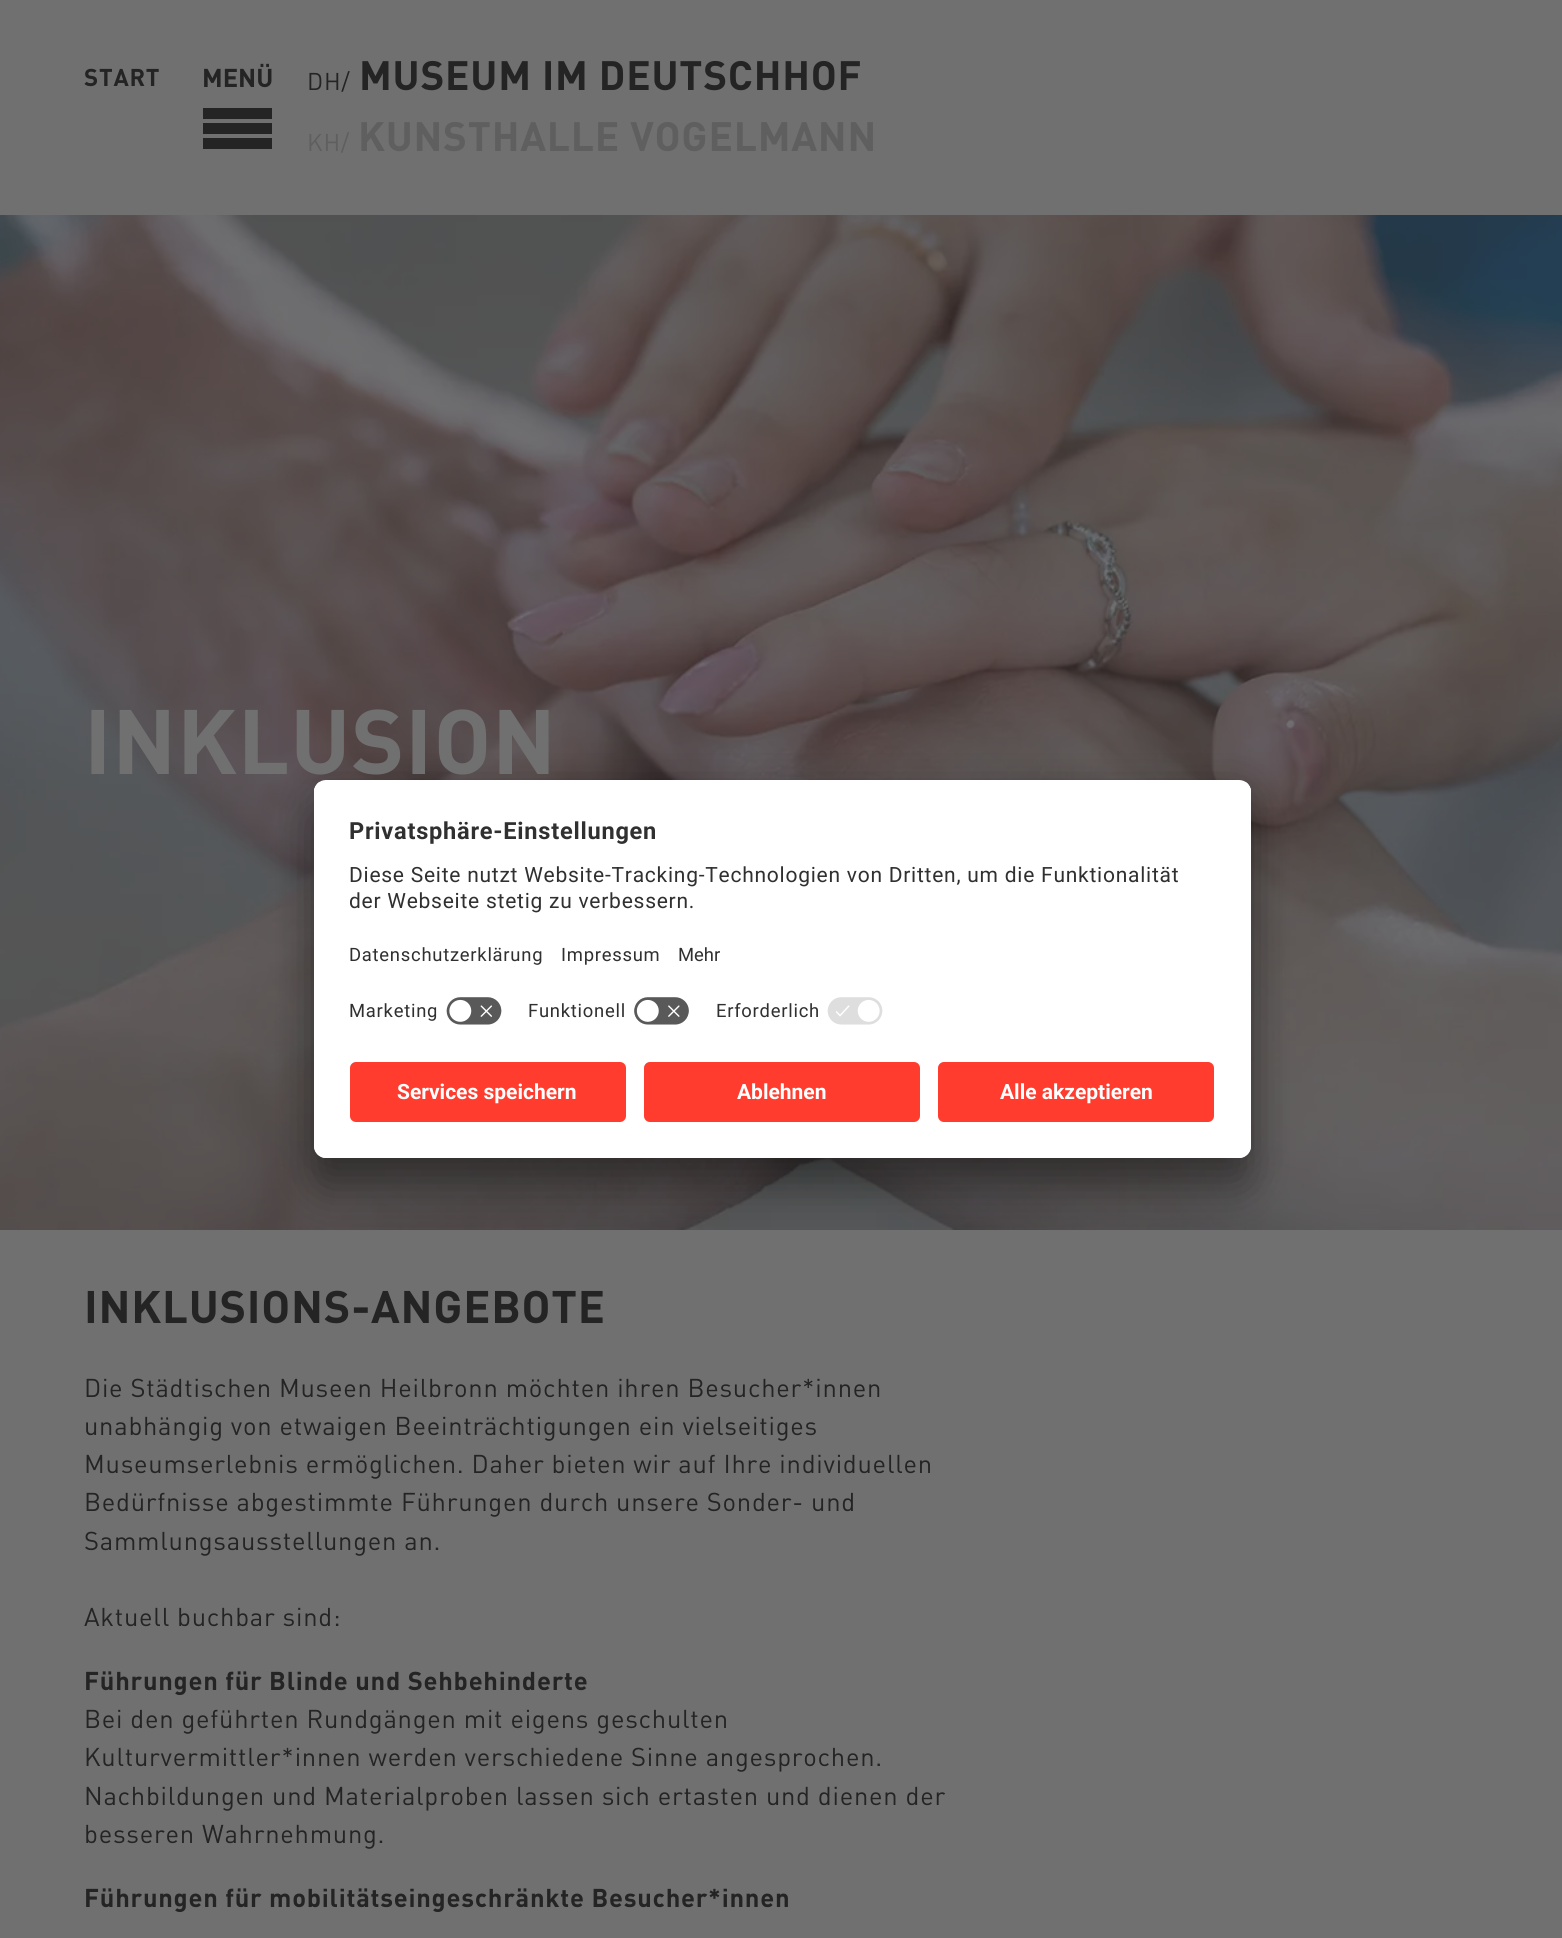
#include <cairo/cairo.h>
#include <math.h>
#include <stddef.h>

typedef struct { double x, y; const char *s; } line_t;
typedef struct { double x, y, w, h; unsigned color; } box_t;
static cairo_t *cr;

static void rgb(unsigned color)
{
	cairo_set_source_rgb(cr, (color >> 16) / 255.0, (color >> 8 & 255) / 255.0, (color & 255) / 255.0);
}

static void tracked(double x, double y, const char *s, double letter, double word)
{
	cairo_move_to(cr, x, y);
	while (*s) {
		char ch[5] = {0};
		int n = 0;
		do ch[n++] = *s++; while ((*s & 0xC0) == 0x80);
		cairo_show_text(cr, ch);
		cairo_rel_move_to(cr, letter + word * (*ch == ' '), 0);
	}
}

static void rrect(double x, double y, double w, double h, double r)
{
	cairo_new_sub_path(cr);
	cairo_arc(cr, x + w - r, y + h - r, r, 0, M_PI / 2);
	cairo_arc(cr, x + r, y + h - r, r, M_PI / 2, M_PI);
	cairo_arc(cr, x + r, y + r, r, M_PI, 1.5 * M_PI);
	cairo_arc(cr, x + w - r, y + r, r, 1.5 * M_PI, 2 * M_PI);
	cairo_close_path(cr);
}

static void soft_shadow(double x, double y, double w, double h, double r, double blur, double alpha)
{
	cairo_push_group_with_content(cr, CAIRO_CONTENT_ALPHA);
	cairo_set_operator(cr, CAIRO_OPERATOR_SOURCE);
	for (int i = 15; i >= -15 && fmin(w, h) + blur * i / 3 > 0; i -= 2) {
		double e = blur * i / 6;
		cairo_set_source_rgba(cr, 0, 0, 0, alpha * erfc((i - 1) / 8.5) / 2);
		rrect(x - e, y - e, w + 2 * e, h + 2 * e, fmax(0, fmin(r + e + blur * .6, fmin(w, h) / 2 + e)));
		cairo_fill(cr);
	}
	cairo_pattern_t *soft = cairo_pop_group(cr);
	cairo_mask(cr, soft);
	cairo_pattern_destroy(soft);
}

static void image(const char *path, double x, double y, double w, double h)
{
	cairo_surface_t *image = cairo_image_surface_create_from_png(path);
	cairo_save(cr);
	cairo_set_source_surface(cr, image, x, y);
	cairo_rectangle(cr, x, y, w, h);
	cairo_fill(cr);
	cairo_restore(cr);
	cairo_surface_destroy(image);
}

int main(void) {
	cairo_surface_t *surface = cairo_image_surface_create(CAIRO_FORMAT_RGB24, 1562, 1938);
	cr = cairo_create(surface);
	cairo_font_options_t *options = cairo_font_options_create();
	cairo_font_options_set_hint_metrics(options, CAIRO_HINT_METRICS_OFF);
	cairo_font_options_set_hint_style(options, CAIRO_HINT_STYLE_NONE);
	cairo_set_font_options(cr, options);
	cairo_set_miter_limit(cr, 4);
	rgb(0x707070);
	cairo_paint(cr);
	{
		static const box_t items[] = {
			{203, 138, 69, 11, 0x242424},
			{203, 108, 69, 11, 0x242424},
			{203, 123, 69, 11, 0x242424},
		};
		for (size_t i = 0; i < sizeof items / sizeof *items; i++) {
			rgb(items[i].color);
			cairo_rectangle(cr, items[i].x, items[i].y, items[i].w, items[i].h);
			cairo_fill(cr);
		}
	}
	image("img/1.png", 0, 215, 1562, 1015);
	rgb(0x000000);
	soft_shadow(314, 810, 937, 378, 12, 21, 0.3);
	soft_shadow(314, 788, 937, 378, 12, 19.5, 0.22);
	rgb(0xffffff);
	rrect(314, 780, 937, 378, 12);
	cairo_fill(cr);
	cairo_save(cr);
	rrect(314, 780, 937, 378, 12);
	cairo_clip(cr);
	cairo_new_path(cr);
	cairo_move_to(cr, 326, 780);
	cairo_line_to(cr, 1239, 780);
	cairo_curve_to(cr, 1245.5, 780, 1251, 785.5, 1251, 792);
	cairo_line_to(cr, 1251, 1050);
	cairo_line_to(cr, 314, 1050);
	cairo_line_to(cr, 314, 792);
	cairo_curve_to(cr, 314, 785.5, 319.5, 780, 326, 780);
	cairo_close_path(cr);
	cairo_clip(cr);
	cairo_rectangle(cr, 314, 782, 937, 268);
	cairo_fill(cr);
	cairo_rectangle(cr, 314, 782, 937, 208);
	cairo_fill(cr);
	cairo_restore(cr);
	image("img/2.png", 446, 997, 56, 28);
	image("img/3.png", 634, 997, 55, 28);
	image("img/4.png", 827, 997, 56, 28);
	cairo_new_path(cr);
	cairo_move_to(cr, 314, 1050);
	cairo_line_to(cr, 1251, 1050);
	cairo_line_to(cr, 1251, 1146);
	cairo_curve_to(cr, 1251, 1152.5, 1245.5, 1158, 1239, 1158);
	cairo_line_to(cr, 326, 1158);
	cairo_curve_to(cr, 319.5, 1158, 314, 1152.5, 314, 1146);
	cairo_close_path(cr);
	cairo_fill(cr);
	rgb(0xff3c2d);
	rrect(350, 1062, 276, 60, 6);
	cairo_fill(cr);
	rrect(644, 1062, 276, 60, 6);
	cairo_fill(cr);
	rrect(938, 1062, 276, 60, 6);
	cairo_fill(cr);
	cairo_select_font_face(cr, "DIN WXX", CAIRO_FONT_SLANT_NORMAL, CAIRO_FONT_WEIGHT_BOLD);
	cairo_set_font_size(cr, 24);
	rgb(0x242424);
	tracked(84, 86, "START", 0.75, 0);
	cairo_set_font_size(cr, 25.5);
	cairo_move_to(cr, 202, 87);
	cairo_show_text(cr, "MENÜ");
	cairo_select_font_face(cr, "DIN WXX", CAIRO_FONT_SLANT_NORMAL, CAIRO_FONT_WEIGHT_NORMAL);
	cairo_set_font_size(cr, 24);
	tracked(307, 90, "DH/", 0.75, 0);
	cairo_select_font_face(cr, "DIN WXX", CAIRO_FONT_SLANT_NORMAL, CAIRO_FONT_WEIGHT_BOLD);
	cairo_set_font_size(cr, 40.5);
	tracked(359, 90, "MUSEUM IM DEUTSCHHOF", 0.75, 0);
	cairo_select_font_face(cr, "DIN WXX", CAIRO_FONT_SLANT_NORMAL, CAIRO_FONT_WEIGHT_NORMAL);
	cairo_set_font_size(cr, 24);
	rgb(0x5f5f5f);
	tracked(307, 151, "KH/", 0.75, 0);
	cairo_select_font_face(cr, "DIN WXX", CAIRO_FONT_SLANT_NORMAL, CAIRO_FONT_WEIGHT_BOLD);
	cairo_set_font_size(cr, 40.5);
	tracked(358, 151, "KUNSTHALLE VOGELMANN", 0.75, 0);
	cairo_set_font_size(cr, 90);
	rgb(0x707070);
	tracked(84, 774, "INKLUSION", 0.75, 0);
	cairo_set_font_size(cr, 45);
	rgb(0x242424);
	tracked(84, 1323, "INKLUSIONS-ANGEBOTE", 0.75, 0);
	cairo_select_font_face(cr, "DIN WXX", CAIRO_FONT_SLANT_NORMAL, CAIRO_FONT_WEIGHT_NORMAL);
	cairo_set_font_size(cr, 25.5);
	{
		static const line_t items[] = {
			{84, 1397, "Die Städtischen Museen Heilbronn möchten ihren Besucher*innen"},
			{84, 1435, "unabhängig von etwaigen Beeinträchtigungen ein vielseitiges"},
			{84, 1473, "Museumserlebnis ermöglichen. Daher bieten wir auf Ihre individuellen"},
			{84, 1511, "Bedürfnisse abgestimmte Führungen durch unsere Sonder- und"},
			{84, 1550, "Sammlungsausstellungen an."},
			{84, 1626, "Aktuell buchbar sind:"},
		};
		for (size_t i = 0; i < sizeof items / sizeof *items; i++) {
			tracked(items[i].x, items[i].y, items[i].s, 0.75, 0);
		}
	}
	cairo_select_font_face(cr, "DIN WXX", CAIRO_FONT_SLANT_NORMAL, CAIRO_FONT_WEIGHT_BOLD);
	tracked(84, 1690, "Führungen für Blinde und Sehbehinderte", 0.75, 0);
	cairo_select_font_face(cr, "DIN WXX", CAIRO_FONT_SLANT_NORMAL, CAIRO_FONT_WEIGHT_NORMAL);
	{
		static const line_t items[] = {
			{84, 1728, "Bei den geführten Rundgängen mit eigens geschulten"},
			{84, 1766, "Kulturvermittler*innen werden verschiedene Sinne angesprochen."},
			{84, 1805, "Nachbildungen und Materialproben lassen sich ertasten und dienen der"},
			{84, 1843, "besseren Wahrnehmung."},
		};
		for (size_t i = 0; i < sizeof items / sizeof *items; i++) {
			tracked(items[i].x, items[i].y, items[i].s, 0.75, 0);
		}
	}
	cairo_select_font_face(cr, "DIN WXX", CAIRO_FONT_SLANT_NORMAL, CAIRO_FONT_WEIGHT_BOLD);
	tracked(84, 1907, "Führungen für mobilitätseingeschränkte Besucher*innen", 0.75, 0);
	cairo_select_font_face(cr, "Roboto", CAIRO_FONT_SLANT_NORMAL, CAIRO_FONT_WEIGHT_BOLD);
	cairo_set_font_size(cr, 23.6);
	rgb(0x303030);
	tracked(349, 839, "Privatsphäre-Einstellungen", 0.75, 0);
	cairo_select_font_face(cr, "Roboto", CAIRO_FONT_SLANT_NORMAL, CAIRO_FONT_WEIGHT_NORMAL);
	cairo_set_font_size(cr, 21);
	tracked(349, 882, "Diese Seite nutzt Website-Tracking-Technologien von Dritten, um die Funktionalität", 0.75, 0);
	cairo_save(cr);
	cairo_rectangle(cr, 350, 857, 865, 64);
	cairo_clip(cr);
	tracked(349, 908, "der Webseite stetig zu verbessern.", 0.75, 0);
	cairo_restore(cr);
	cairo_set_font_size(cr, 18.4);
	tracked(349, 961, "Datenschutzerklärung", 0.75, 0);
	tracked(561, 961, "Impressum", 0.75, 0);
	cairo_move_to(cr, 678, 961);
	cairo_show_text(cr, "Mehr");
	{
		static const line_t items[] = {
			{349, 1017, "Marketing"},
			{528, 1017, "Funktionell"},
			{716, 1017, "Erforderlich"},
		};
		for (size_t i = 0; i < sizeof items / sizeof *items; i++) {
			tracked(items[i].x, items[i].y, items[i].s, 0.75, 0);
		}
	}
	cairo_select_font_face(cr, "Roboto", CAIRO_FONT_SLANT_NORMAL, CAIRO_FONT_WEIGHT_BOLD);
	cairo_set_font_size(cr, 21);
	rgb(0xffffff);
	{
		static const line_t items[] = {
			{397, 1099, "Services speichern"},
			{737, 1099, "Ablehnen"},
			{1000, 1099, "Alle akzeptieren"},
		};
		for (size_t i = 0; i < sizeof items / sizeof *items; i++) {
			cairo_move_to(cr, items[i].x, items[i].y);
			cairo_show_text(cr, items[i].s);
		}
	}
	cairo_surface_write_to_png(surface, "page.png");
	cairo_font_options_destroy(options);
	cairo_destroy(cr);
	cairo_surface_destroy(surface);
	return 0;
}
